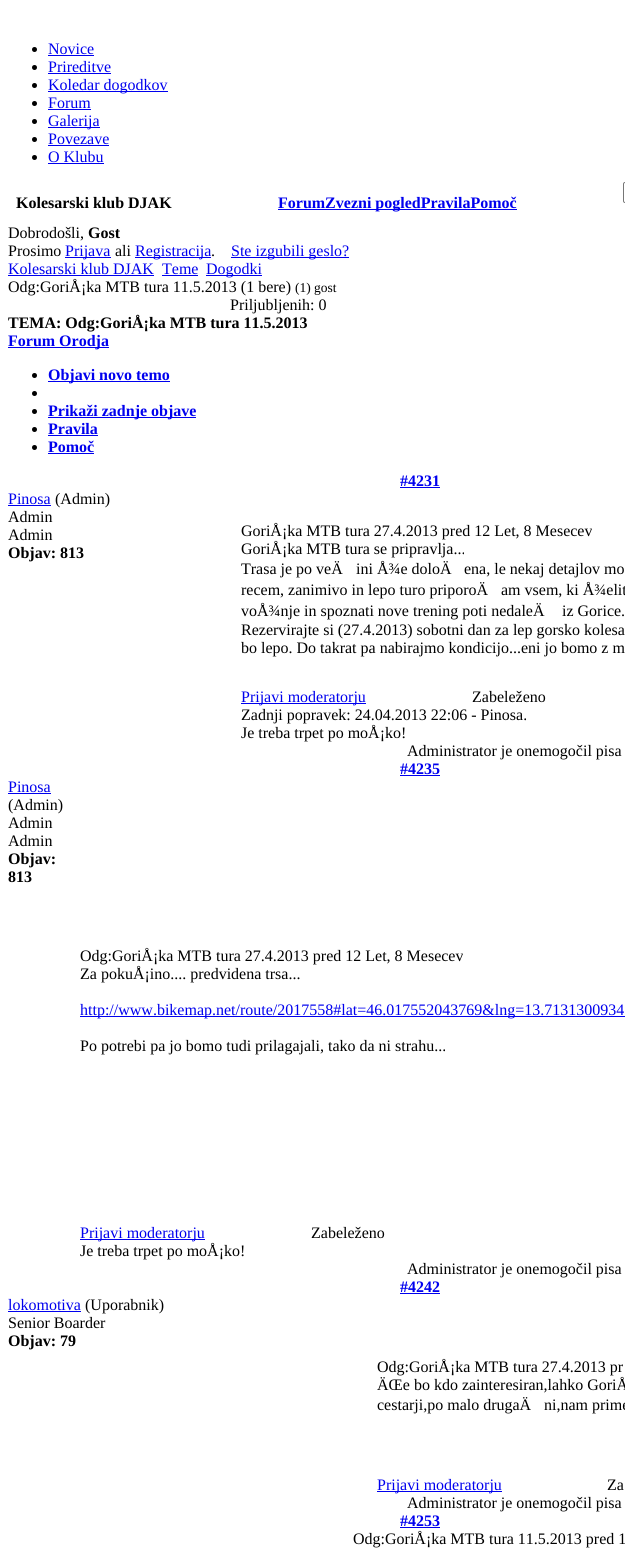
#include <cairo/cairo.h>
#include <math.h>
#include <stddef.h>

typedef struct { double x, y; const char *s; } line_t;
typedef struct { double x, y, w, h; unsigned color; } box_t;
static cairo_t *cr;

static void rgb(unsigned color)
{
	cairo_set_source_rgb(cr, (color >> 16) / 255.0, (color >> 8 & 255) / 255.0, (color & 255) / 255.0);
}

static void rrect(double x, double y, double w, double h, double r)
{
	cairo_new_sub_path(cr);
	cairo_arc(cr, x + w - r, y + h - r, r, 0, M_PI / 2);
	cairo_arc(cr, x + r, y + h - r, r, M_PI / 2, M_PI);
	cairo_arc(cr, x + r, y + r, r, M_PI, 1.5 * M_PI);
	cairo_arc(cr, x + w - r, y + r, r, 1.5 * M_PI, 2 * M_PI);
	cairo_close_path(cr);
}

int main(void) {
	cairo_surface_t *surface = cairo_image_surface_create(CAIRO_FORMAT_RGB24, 625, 1549);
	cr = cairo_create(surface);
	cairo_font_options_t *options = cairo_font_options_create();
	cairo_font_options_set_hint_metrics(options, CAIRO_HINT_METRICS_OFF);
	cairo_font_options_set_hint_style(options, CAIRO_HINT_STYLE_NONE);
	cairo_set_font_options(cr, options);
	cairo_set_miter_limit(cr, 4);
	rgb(0xffffff);
	cairo_paint(cr);
	rgb(0x000000);
	cairo_arc(cr, 34.5, 49.5, 2.5, 0, 2 * M_PI);
	cairo_fill(cr);
	rgb(0x0000ee);
	cairo_rectangle(cr, 48, 55, 46, 1);
	cairo_fill(cr);
	rgb(0x000000);
	cairo_arc(cr, 34.5, 67.5, 2.5, 0, 2 * M_PI);
	cairo_fill(cr);
	rgb(0x0000ee);
	cairo_rectangle(cr, 48, 73, 63, 1);
	cairo_fill(cr);
	rgb(0x000000);
	cairo_arc(cr, 34.5, 85.5, 2.5, 0, 2 * M_PI);
	cairo_fill(cr);
	rgb(0x0000ee);
	cairo_rectangle(cr, 48, 91, 120, 1);
	cairo_fill(cr);
	rgb(0x000000);
	cairo_arc(cr, 34.5, 103.5, 2.5, 0, 2 * M_PI);
	cairo_fill(cr);
	rgb(0x0000ee);
	cairo_rectangle(cr, 48, 109, 43, 1);
	cairo_fill(cr);
	rgb(0x000000);
	cairo_arc(cr, 34.5, 121.5, 2.5, 0, 2 * M_PI);
	cairo_fill(cr);
	rgb(0x0000ee);
	cairo_rectangle(cr, 48, 127, 52, 1);
	cairo_fill(cr);
	rgb(0x000000);
	cairo_arc(cr, 34.5, 139.5, 2.5, 0, 2 * M_PI);
	cairo_fill(cr);
	rgb(0x0000ee);
	cairo_rectangle(cr, 48, 145, 61, 1);
	cairo_fill(cr);
	rgb(0x000000);
	cairo_arc(cr, 34.5, 157.5, 2.5, 0, 2 * M_PI);
	cairo_fill(cr);
	{
		static const box_t items[] = {
			{48, 163, 56, 1, 0x0000ee},
			{278, 209, 192, 1, 0x0000ee},
			{470, 209, 47, 1, 0x0000ee},
		};
		for (size_t i = 0; i < sizeof items / sizeof *items; i++) {
			rgb(items[i].color);
			cairo_rectangle(cr, items[i].x, items[i].y, items[i].w, items[i].h);
			cairo_fill(cr);
		}
	}
	rrect(623.5, 182.5, 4, 20, 1.5);
	rgb(0x767676);
	cairo_set_line_width(cr, 1);
	cairo_stroke(cr);
	{
		static const box_t items[] = {
			{65, 257, 46, 1, 0x0000ee},
			{135, 257, 76, 1, 0x0000ee},
			{231, 257, 118, 1, 0x0000ee},
			{8, 275, 146, 1, 0x0000ee},
			{162, 275, 36, 1, 0x0000ee},
			{206, 275, 56, 1, 0x0000ee},
			{8, 347, 101, 1, 0x0000ee},
		};
		for (size_t i = 0; i < sizeof items / sizeof *items; i++) {
			rgb(items[i].color);
			cairo_rectangle(cr, items[i].x, items[i].y, items[i].w, items[i].h);
			cairo_fill(cr);
		}
	}
	rgb(0x000000);
	cairo_arc(cr, 34.5, 375.5, 2.5, 0, 2 * M_PI);
	cairo_fill(cr);
	rgb(0x0000ee);
	cairo_rectangle(cr, 48, 381, 122, 1);
	cairo_fill(cr);
	rgb(0x000000);
	cairo_arc(cr, 34.5, 393.5, 2.5, 0, 2 * M_PI);
	cairo_fill(cr);
	cairo_arc(cr, 34.5, 411.5, 2.5, 0, 2 * M_PI);
	cairo_fill(cr);
	rgb(0x0000ee);
	cairo_rectangle(cr, 48, 417, 148, 1);
	cairo_fill(cr);
	rgb(0x000000);
	cairo_arc(cr, 34.5, 429.5, 2.5, 0, 2 * M_PI);
	cairo_fill(cr);
	rgb(0x0000ee);
	cairo_rectangle(cr, 48, 435, 50, 1);
	cairo_fill(cr);
	rgb(0x000000);
	cairo_arc(cr, 34.5, 447.5, 2.5, 0, 2 * M_PI);
	cairo_fill(cr);
	{
		static const box_t items[] = {
			{48, 453, 46, 1, 0x0000ee},
			{400, 487, 40, 1, 0x0000ee},
			{8, 505, 43, 1, 0x0000ee},
			{241, 703, 125, 1, 0x0000ee},
			{400, 775, 40, 1, 0x0000ee},
			{8, 793, 43, 1, 0x0000ee},
			{80, 1016, 545, 1, 0x0000ee},
			{80, 1239, 125, 1, 0x0000ee},
			{400, 1293, 40, 1, 0x0000ee},
			{8, 1311, 73, 1, 0x0000ee},
			{377, 1491, 125, 1, 0x0000ee},
			{400, 1527, 40, 1, 0x0000ee},
		};
		for (size_t i = 0; i < sizeof items / sizeof *items; i++) {
			rgb(items[i].color);
			cairo_rectangle(cr, items[i].x, items[i].y, items[i].w, items[i].h);
			cairo_fill(cr);
		}
	}
	cairo_select_font_face(cr, "Liberation Serif", CAIRO_FONT_SLANT_NORMAL, CAIRO_FONT_WEIGHT_NORMAL);
	cairo_set_font_size(cr, 16);
	{
		static const line_t items[] = {
			{48, 54, "Novice"},
			{48, 72, "Prireditve"},
			{48, 90, "Koledar dogodkov"},
			{48, 108, "Forum"},
			{48, 126, "Galerija"},
			{48, 144, "Povezave"},
			{48, 162, "O Klubu"},
		};
		for (size_t i = 0; i < sizeof items / sizeof *items; i++) {
			cairo_move_to(cr, items[i].x, items[i].y);
			cairo_show_text(cr, items[i].s);
		}
	}
	cairo_select_font_face(cr, "Liberation Serif", CAIRO_FONT_SLANT_NORMAL, CAIRO_FONT_WEIGHT_BOLD);
	rgb(0x000000);
	cairo_move_to(cr, 16, 208);
	cairo_show_text(cr, "Kolesarski klub DJAK");
	rgb(0x0000ee);
	cairo_move_to(cr, 278, 208);
	cairo_show_text(cr, "ForumZvezni pogledPravilaPomoč");
	cairo_select_font_face(cr, "Liberation Serif", CAIRO_FONT_SLANT_NORMAL, CAIRO_FONT_WEIGHT_NORMAL);
	rgb(0x000000);
	cairo_move_to(cr, 8, 238);
	cairo_show_text(cr, "Dobrodošli,");
	cairo_select_font_face(cr, "Liberation Serif", CAIRO_FONT_SLANT_NORMAL, CAIRO_FONT_WEIGHT_BOLD);
	cairo_move_to(cr, 88, 238);
	cairo_show_text(cr, "Gost");
	cairo_select_font_face(cr, "Liberation Serif", CAIRO_FONT_SLANT_NORMAL, CAIRO_FONT_WEIGHT_NORMAL);
	cairo_move_to(cr, 8, 256);
	cairo_show_text(cr, "Prosimo");
	rgb(0x0000ee);
	cairo_move_to(cr, 65, 256);
	cairo_show_text(cr, "Prijava");
	rgb(0x000000);
	cairo_move_to(cr, 115, 256);
	cairo_show_text(cr, "ali");
	rgb(0x0000ee);
	cairo_move_to(cr, 135, 256);
	cairo_show_text(cr, "Registracija");
	rgb(0x000000);
	cairo_move_to(cr, 211, 256);
	cairo_show_text(cr, ".");
	rgb(0x0000ee);
	{
		static const line_t items[] = {
			{231, 256, "Ste izgubili geslo?"},
			{8, 274, "Kolesarski klub DJAK"},
			{162, 274, "Teme"},
			{206, 274, "Dogodki"},
		};
		for (size_t i = 0; i < sizeof items / sizeof *items; i++) {
			cairo_move_to(cr, items[i].x, items[i].y);
			cairo_show_text(cr, items[i].s);
		}
	}
	rgb(0x000000);
	cairo_move_to(cr, 8, 292);
	cairo_show_text(cr, "Odg:GoriÅ¡ka MTB tura 11.5.2013 (1 bere)");
	cairo_set_font_size(cr, 13.5);
	cairo_move_to(cr, 295, 292);
	cairo_show_text(cr, "(1) gost");
	cairo_set_font_size(cr, 16);
	cairo_move_to(cr, 230, 310);
	cairo_show_text(cr, "Priljubljenih: 0");
	cairo_select_font_face(cr, "Liberation Serif", CAIRO_FONT_SLANT_NORMAL, CAIRO_FONT_WEIGHT_BOLD);
	cairo_move_to(cr, 8, 328);
	cairo_show_text(cr, "TEMA: Odg:GoriÅ¡ka MTB tura 11.5.2013");
	rgb(0x0000ee);
	{
		static const line_t items[] = {
			{8, 346, "Forum Orodja"},
			{48, 380, "Objavi novo temo"},
			{48, 416, "Prikaži zadnje objave"},
			{48, 434, "Pravila"},
			{48, 452, "Pomoč"},
			{400, 486, "#4231"},
		};
		for (size_t i = 0; i < sizeof items / sizeof *items; i++) {
			cairo_move_to(cr, items[i].x, items[i].y);
			cairo_show_text(cr, items[i].s);
		}
	}
	cairo_select_font_face(cr, "Liberation Serif", CAIRO_FONT_SLANT_NORMAL, CAIRO_FONT_WEIGHT_NORMAL);
	cairo_move_to(cr, 8, 504);
	cairo_show_text(cr, "Pinosa");
	rgb(0x000000);
	{
		static const line_t items[] = {
			{55, 504, "(Admin)"},
			{8, 522, "Admin"},
			{8, 540, "Admin"},
		};
		for (size_t i = 0; i < sizeof items / sizeof *items; i++) {
			cairo_move_to(cr, items[i].x, items[i].y);
			cairo_show_text(cr, items[i].s);
		}
	}
	cairo_select_font_face(cr, "Liberation Serif", CAIRO_FONT_SLANT_NORMAL, CAIRO_FONT_WEIGHT_BOLD);
	cairo_move_to(cr, 8, 558);
	cairo_show_text(cr, "Objav: 813");
	cairo_select_font_face(cr, "Liberation Serif", CAIRO_FONT_SLANT_NORMAL, CAIRO_FONT_WEIGHT_NORMAL);
	{
		static const line_t items[] = {
			{241, 536, "GoriÅ¡ka MTB tura 27.4.2013 pred 12 Let, 8 Mesecev"},
			{241, 554, "GoriÅ¡ka MTB tura se pripravlja..."},
			{241, 574, "Trasa je po veÄ"},
			{356, 574, "ini Å¾e doloÄ"},
			{464, 574, "ena, le nekaj detajlov mo"},
			{241, 595, "recem, zanimivo in lepo turo priporoÄ"},
			{501, 595, "am vsem, ki Å¾elit"},
			{241, 616, "voÅ¾nje in spoznati nove trening poti nedaleÄ"},
			{562, 616, "iz Gorice."},
			{241, 635, "Rezervirajte si (27.4.2013) sobotni dan za lep gorsko kolesa"},
			{241, 653, "bo lepo. Do takrat pa nabirajmo kondicijo...eni jo bomo z m"},
		};
		for (size_t i = 0; i < sizeof items / sizeof *items; i++) {
			cairo_move_to(cr, items[i].x, items[i].y);
			cairo_show_text(cr, items[i].s);
		}
	}
	rgb(0x0000ee);
	cairo_move_to(cr, 241, 702);
	cairo_show_text(cr, "Prijavi moderatorju");
	rgb(0x000000);
	{
		static const line_t items[] = {
			{472, 702, "Zabeleženo"},
			{241, 720, "Zadnji popravek: 24.04.2013 22:06 - Pinosa."},
			{241, 738, "Je treba trpet po moÅ¡ko!"},
			{407, 756, "Administrator je onemogočil pisa"},
		};
		for (size_t i = 0; i < sizeof items / sizeof *items; i++) {
			cairo_move_to(cr, items[i].x, items[i].y);
			cairo_show_text(cr, items[i].s);
		}
	}
	cairo_select_font_face(cr, "Liberation Serif", CAIRO_FONT_SLANT_NORMAL, CAIRO_FONT_WEIGHT_BOLD);
	rgb(0x0000ee);
	cairo_move_to(cr, 400, 774);
	cairo_show_text(cr, "#4235");
	cairo_select_font_face(cr, "Liberation Serif", CAIRO_FONT_SLANT_NORMAL, CAIRO_FONT_WEIGHT_NORMAL);
	cairo_move_to(cr, 8, 792);
	cairo_show_text(cr, "Pinosa");
	rgb(0x000000);
	{
		static const line_t items[] = {
			{8, 810, "(Admin)"},
			{8, 828, "Admin"},
			{8, 846, "Admin"},
		};
		for (size_t i = 0; i < sizeof items / sizeof *items; i++) {
			cairo_move_to(cr, items[i].x, items[i].y);
			cairo_show_text(cr, items[i].s);
		}
	}
	cairo_select_font_face(cr, "Liberation Serif", CAIRO_FONT_SLANT_NORMAL, CAIRO_FONT_WEIGHT_BOLD);
	cairo_move_to(cr, 8, 864);
	cairo_show_text(cr, "Objav:");
	cairo_move_to(cr, 8, 882);
	cairo_show_text(cr, "813");
	cairo_select_font_face(cr, "Liberation Serif", CAIRO_FONT_SLANT_NORMAL, CAIRO_FONT_WEIGHT_NORMAL);
	cairo_move_to(cr, 80, 961);
	cairo_show_text(cr, "Odg:GoriÅ¡ka MTB tura 27.4.2013 pred 12 Let, 8 Mesecev");
	cairo_move_to(cr, 80, 979);
	cairo_show_text(cr, "Za pokuÅ¡ino.... predvidena trsa...");
	rgb(0x0000ee);
	cairo_move_to(cr, 80, 1015);
	cairo_show_text(cr, "http://www.bikemap.net/route/2017558#lat=46.017552043769&lng=13.7131300934");
	rgb(0x000000);
	cairo_move_to(cr, 80, 1051);
	cairo_show_text(cr, "Po potrebi pa jo bomo tudi prilagajali, tako da ni strahu...");
	rgb(0x0000ee);
	cairo_move_to(cr, 80, 1238);
	cairo_show_text(cr, "Prijavi moderatorju");
	rgb(0x000000);
	{
		static const line_t items[] = {
			{311, 1238, "Zabeleženo"},
			{80, 1256, "Je treba trpet po moÅ¡ko!"},
			{407, 1274, "Administrator je onemogočil pisa"},
		};
		for (size_t i = 0; i < sizeof items / sizeof *items; i++) {
			cairo_move_to(cr, items[i].x, items[i].y);
			cairo_show_text(cr, items[i].s);
		}
	}
	cairo_select_font_face(cr, "Liberation Serif", CAIRO_FONT_SLANT_NORMAL, CAIRO_FONT_WEIGHT_BOLD);
	rgb(0x0000ee);
	cairo_move_to(cr, 400, 1292);
	cairo_show_text(cr, "#4242");
	cairo_select_font_face(cr, "Liberation Serif", CAIRO_FONT_SLANT_NORMAL, CAIRO_FONT_WEIGHT_NORMAL);
	cairo_move_to(cr, 8, 1310);
	cairo_show_text(cr, "lokomotiva");
	rgb(0x000000);
	cairo_move_to(cr, 85, 1310);
	cairo_show_text(cr, "(Uporabnik)");
	cairo_move_to(cr, 8, 1328);
	cairo_show_text(cr, "Senior Boarder");
	cairo_select_font_face(cr, "Liberation Serif", CAIRO_FONT_SLANT_NORMAL, CAIRO_FONT_WEIGHT_BOLD);
	cairo_move_to(cr, 8, 1346);
	cairo_show_text(cr, "Objav: 79");
	cairo_select_font_face(cr, "Liberation Serif", CAIRO_FONT_SLANT_NORMAL, CAIRO_FONT_WEIGHT_NORMAL);
	{
		static const line_t items[] = {
			{377, 1372, "Odg:GoriÅ¡ka MTB tura 27.4.2013 pr"},
			{377, 1390, "ÄŒe bo kdo zainteresiran,lahko GoriÅ"},
			{377, 1410, "cestarji,po malo drugaÄ"},
			{544, 1410, "ni,nam prime"},
		};
		for (size_t i = 0; i < sizeof items / sizeof *items; i++) {
			cairo_move_to(cr, items[i].x, items[i].y);
			cairo_show_text(cr, items[i].s);
		}
	}
	rgb(0x0000ee);
	cairo_move_to(cr, 377, 1490);
	cairo_show_text(cr, "Prijavi moderatorju");
	rgb(0x000000);
	cairo_move_to(cr, 607, 1490);
	cairo_show_text(cr, "Za");
	cairo_move_to(cr, 407, 1508);
	cairo_show_text(cr, "Administrator je onemogočil pisa");
	cairo_select_font_face(cr, "Liberation Serif", CAIRO_FONT_SLANT_NORMAL, CAIRO_FONT_WEIGHT_BOLD);
	rgb(0x0000ee);
	cairo_move_to(cr, 400, 1526);
	cairo_show_text(cr, "#4253");
	cairo_select_font_face(cr, "Liberation Serif", CAIRO_FONT_SLANT_NORMAL, CAIRO_FONT_WEIGHT_NORMAL);
	rgb(0x000000);
	cairo_move_to(cr, 353, 1544);
	cairo_show_text(cr, "Odg:GoriÅ¡ka MTB tura 11.5.2013 pred 1");
	cairo_surface_write_to_png(surface, "page.png");
	cairo_font_options_destroy(options);
	cairo_destroy(cr);
	cairo_surface_destroy(surface);
	return 0;
}
